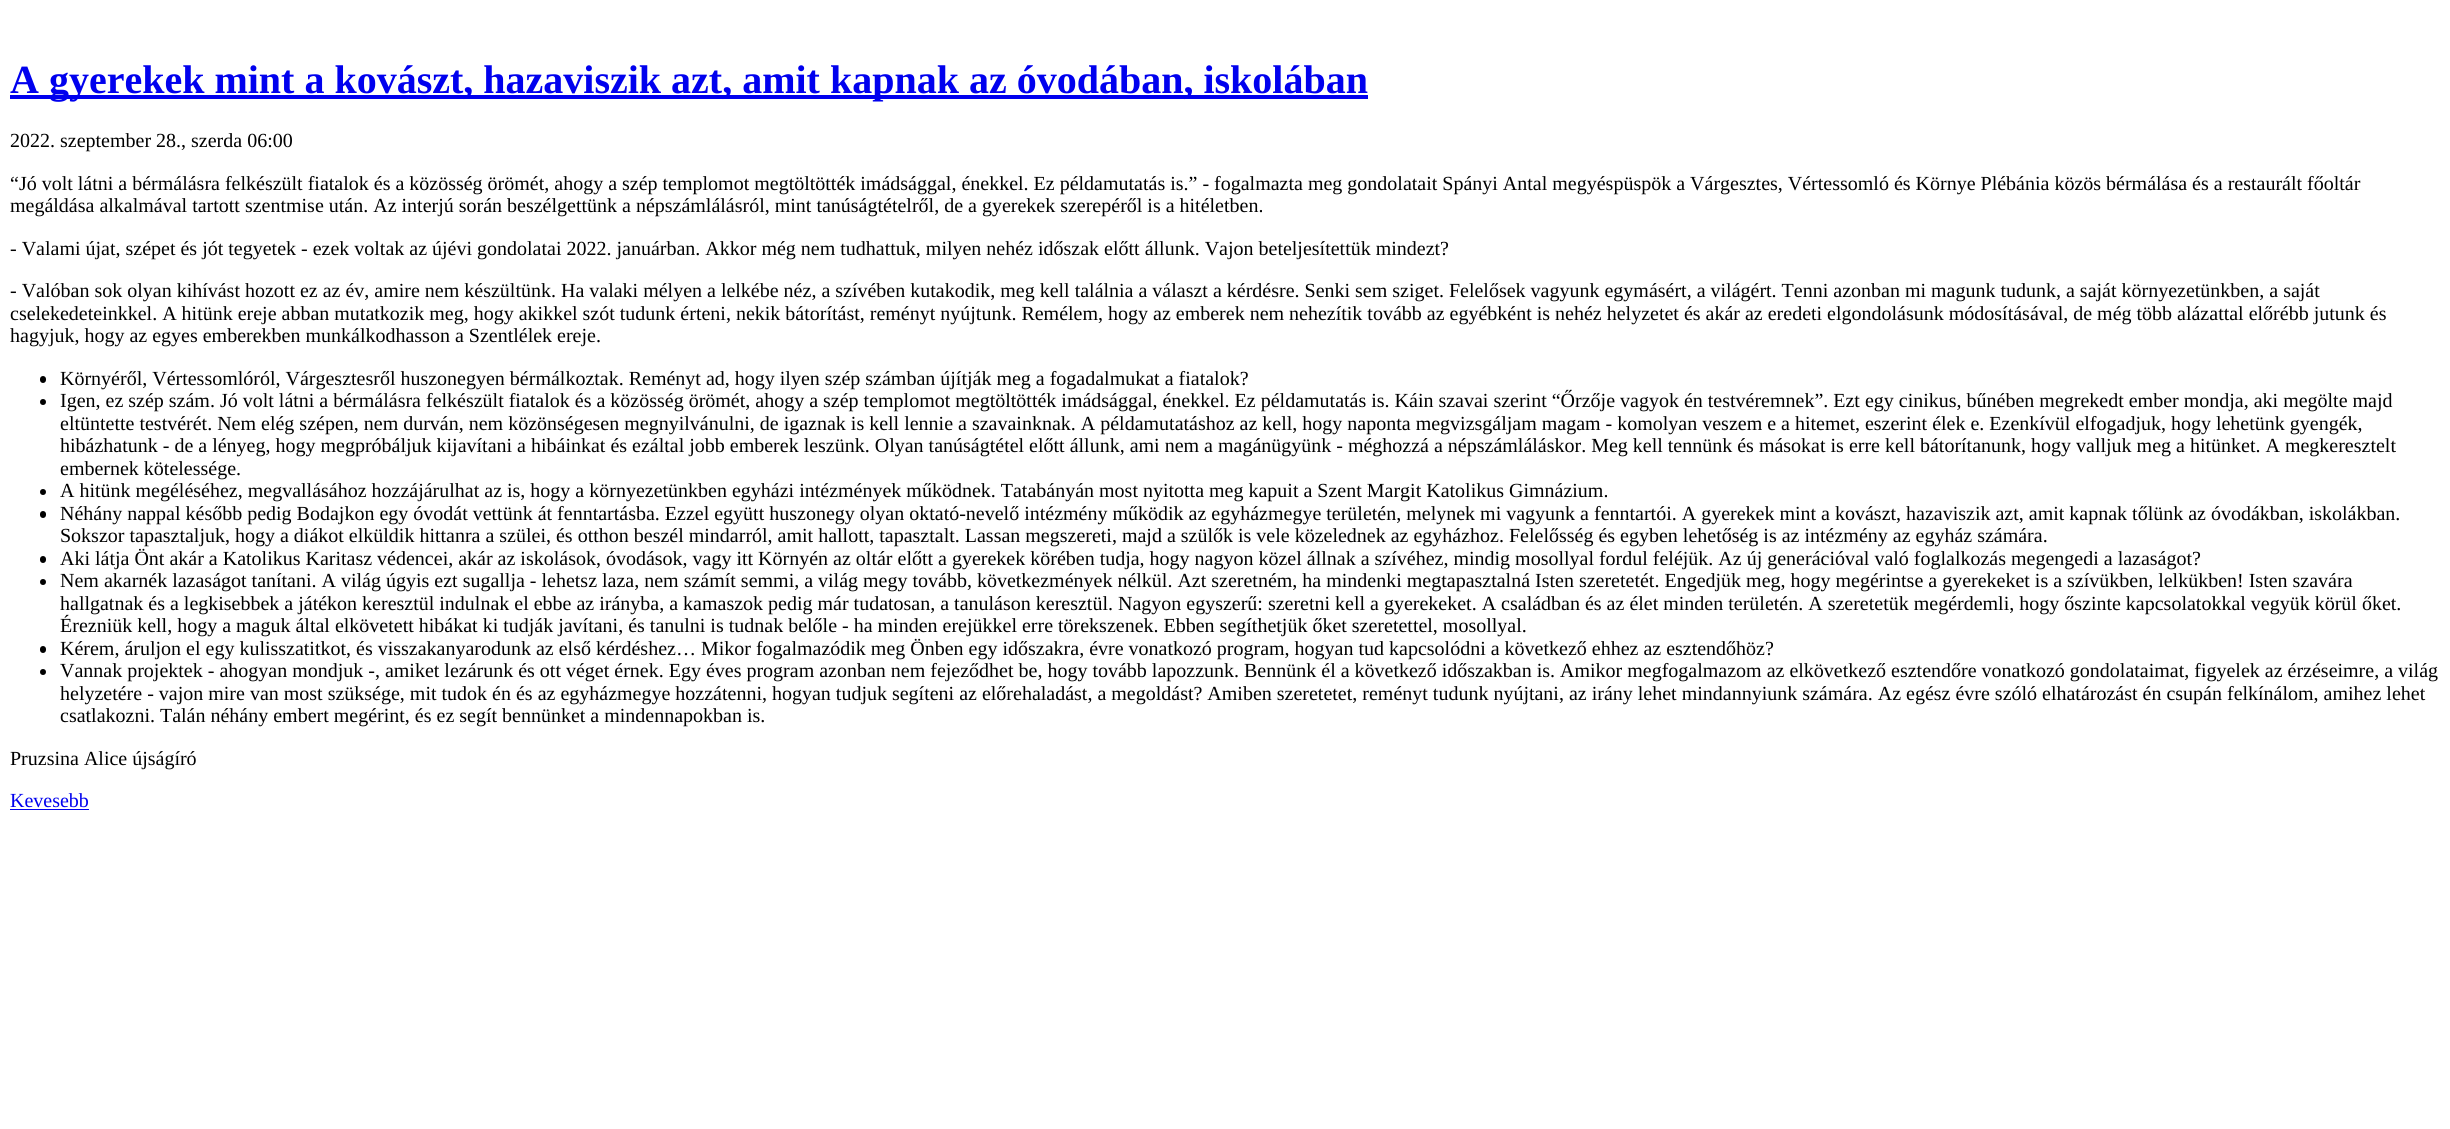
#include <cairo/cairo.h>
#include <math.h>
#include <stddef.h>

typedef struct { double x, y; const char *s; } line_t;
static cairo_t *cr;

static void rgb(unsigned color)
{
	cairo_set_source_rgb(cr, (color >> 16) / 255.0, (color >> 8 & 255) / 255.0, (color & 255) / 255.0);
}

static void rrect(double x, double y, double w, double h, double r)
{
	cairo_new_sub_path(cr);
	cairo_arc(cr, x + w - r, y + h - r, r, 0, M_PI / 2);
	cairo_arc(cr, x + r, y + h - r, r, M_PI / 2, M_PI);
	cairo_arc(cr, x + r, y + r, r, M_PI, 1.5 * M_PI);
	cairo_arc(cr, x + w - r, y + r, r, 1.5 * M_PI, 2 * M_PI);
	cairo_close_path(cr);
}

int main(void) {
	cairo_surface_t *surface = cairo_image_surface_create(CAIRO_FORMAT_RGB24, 2450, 1129);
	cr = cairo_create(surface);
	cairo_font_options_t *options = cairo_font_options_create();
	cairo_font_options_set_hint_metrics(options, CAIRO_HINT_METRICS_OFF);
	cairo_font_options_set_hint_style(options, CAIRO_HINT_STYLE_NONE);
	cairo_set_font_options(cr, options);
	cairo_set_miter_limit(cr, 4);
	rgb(0xffffff);
	cairo_paint(cr);
	rgb(0x0000ee);
	cairo_rectangle(cr, 10, 95, 1358, 4);
	cairo_fill(cr);
	rgb(0x000000);
	rrect(40, 376, 6, 7, 3);
	cairo_fill(cr);
	cairo_arc(cr, 43, 402, 3, 0, 2 * M_PI);
	cairo_fill(cr);
	cairo_arc(cr, 43, 492, 3, 0, 2 * M_PI);
	cairo_fill(cr);
	rrect(40, 511, 6, 7, 3);
	cairo_fill(cr);
	rrect(40, 556, 6, 7, 3);
	cairo_fill(cr);
	cairo_arc(cr, 43, 582, 3, 0, 2 * M_PI);
	cairo_fill(cr);
	rrect(40, 646, 6, 7, 3);
	cairo_fill(cr);
	cairo_arc(cr, 43, 672, 3, 0, 2 * M_PI);
	cairo_fill(cr);
	rgb(0x0000ee);
	cairo_rectangle(cr, 10, 809, 79, 1);
	cairo_fill(cr);
	cairo_select_font_face(cr, "Liberation Serif", CAIRO_FONT_SLANT_NORMAL, CAIRO_FONT_WEIGHT_BOLD);
	cairo_set_font_size(cr, 40);
	cairo_move_to(cr, 10, 93);
	cairo_show_text(cr, "A gyerekek mint a kovászt, hazaviszik azt, amit kapnak az óvodában, iskolában");
	cairo_select_font_face(cr, "Liberation Serif", CAIRO_FONT_SLANT_NORMAL, CAIRO_FONT_WEIGHT_NORMAL);
	cairo_set_font_size(cr, 20);
	rgb(0x000000);
	{
		static const line_t items[] = {
			{10, 147, "2022. szeptember 28., szerda 06:00"},
			{10, 190, "“Jó volt látni a bérmálásra felkészült fiatalok és a közösség örömét, ahogy a szép templomot megtöltötték imádsággal, énekkel. Ez példamutatás is.” - fogalmazta meg gondolatait Spányi Antal megyéspüspök a Várgesztes, Vértessomló és Környe Plébánia közös bérmálása és a restaurált főoltár"},
			{10, 212, "megáldása alkalmával tartott szentmise után. Az interjú során beszélgettünk a népszámlálásról, mint tanúságtételről, de a gyerekek szerepéről is a hitéletben."},
			{10, 255, "- Valami újat, szépet és jót tegyetek - ezek voltak az újévi gondolatai 2022. januárban. Akkor még nem tudhattuk, milyen nehéz időszak előtt állunk. Vajon beteljesítettük mindezt?"},
			{10, 297, "- Valóban sok olyan kihívást hozott ez az év, amire nem készültünk. Ha valaki mélyen a lelkébe néz, a szívében kutakodik, meg kell találnia a választ a kérdésre. Senki sem sziget. Felelősek vagyunk egymásért, a világért. Tenni azonban mi magunk tudunk, a saját környezetünkben, a saját"},
			{10, 320, "cselekedeteinkkel. A hitünk ereje abban mutatkozik meg, hogy akikkel szót tudunk érteni, nekik bátorítást, reményt nyújtunk. Remélem, hogy az emberek nem nehezítik tovább az egyébként is nehéz helyzetet és akár az eredeti elgondolásunk módosításával, de még több alázattal előrébb jutunk és"},
			{10, 342, "hagyjuk, hogy az egyes emberekben munkálkodhasson a Szentlélek ereje."},
			{60, 385, "Környéről, Vértessomlóról, Várgesztesről huszonegyen bérmálkoztak. Reményt ad, hogy ilyen szép számban újítják meg a fogadalmukat a fiatalok?"},
			{60, 407, "Igen, ez szép szám. Jó volt látni a bérmálásra felkészült fiatalok és a közösség örömét, ahogy a szép templomot megtöltötték imádsággal, énekkel. Ez példamutatás is. Káin szavai szerint “Őrzője vagyok én testvéremnek”. Ezt egy cinikus, bűnében megrekedt ember mondja, aki megölte majd"},
			{60, 430, "eltüntette testvérét. Nem elég szépen, nem durván, nem közönségesen megnyilvánulni, de igaznak is kell lennie a szavainknak. A példamutatáshoz az kell, hogy naponta megvizsgáljam magam - komolyan veszem e a hitemet, eszerint élek e. Ezenkívül elfogadjuk, hogy lehetünk gyengék,"},
			{60, 452, "hibázhatunk - de a lényeg, hogy megpróbáljuk kijavítani a hibáinkat és ezáltal jobb emberek leszünk. Olyan tanúságtétel előtt állunk, ami nem a magánügyünk - méghozzá a népszámláláskor. Meg kell tennünk és másokat is erre kell bátorítanunk, hogy valljuk meg a hitünket. A megkeresztelt"},
			{60, 475, "embernek kötelessége."},
			{60, 497, "A hitünk megéléséhez, megvallásához hozzájárulhat az is, hogy a környezetünkben egyházi intézmények működnek. Tatabányán most nyitotta meg kapuit a Szent Margit Katolikus Gimnázium."},
			{60, 520, "Néhány nappal később pedig Bodajkon egy óvodát vettünk át fenntartásba. Ezzel együtt huszonegy olyan oktató-nevelő intézmény működik az egyházmegye területén, melynek mi vagyunk a fenntartói. A gyerekek mint a kovászt, hazaviszik azt, amit kapnak tőlünk az óvodákban, iskolákban."},
			{60, 542, "Sokszor tapasztaljuk, hogy a diákot elküldik hittanra a szülei, és otthon beszél mindarról, amit hallott, tapasztalt. Lassan megszereti, majd a szülők is vele közelednek az egyházhoz. Felelősség és egyben lehetőség is az intézmény az egyház számára."},
			{60, 565, "Aki látja Önt akár a Katolikus Karitasz védencei, akár az iskolások, óvodások, vagy itt Környén az oltár előtt a gyerekek körében tudja, hogy nagyon közel állnak a szívéhez, mindig mosollyal fordul feléjük. Az új generációval való foglalkozás megengedi a lazaságot?"},
			{60, 587, "Nem akarnék lazaságot tanítani. A világ úgyis ezt sugallja - lehetsz laza, nem számít semmi, a világ megy tovább, következmények nélkül. Azt szeretném, ha mindenki megtapasztalná Isten szeretetét. Engedjük meg, hogy megérintse a gyerekeket is a szívükben, lelkükben! Isten szavára"},
			{60, 610, "hallgatnak és a legkisebbek a játékon keresztül indulnak el ebbe az irányba, a kamaszok pedig már tudatosan, a tanuláson keresztül. Nagyon egyszerű: szeretni kell a gyerekeket. A családban és az élet minden területén. A szeretetük megérdemli, hogy őszinte kapcsolatokkal vegyük körül őket."},
			{60, 632, "Érezniük kell, hogy a maguk által elkövetett hibákat ki tudják javítani, és tanulni is tudnak belőle - ha minden erejükkel erre törekszenek. Ebben segíthetjük őket szeretettel, mosollyal."},
			{60, 655, "Kérem, áruljon el egy kulisszatitkot, és visszakanyarodunk az első kérdéshez… Mikor fogalmazódik meg Önben egy időszakra, évre vonatkozó program, hogyan tud kapcsolódni a következő ehhez az esztendőhöz?"},
			{60, 677, "Vannak projektek - ahogyan mondjuk -, amiket lezárunk és ott véget érnek. Egy éves program azonban nem fejeződhet be, hogy tovább lapozzunk. Bennünk él a következő időszakban is. Amikor megfogalmazom az elkövetkező esztendőre vonatkozó gondolataimat, figyelek az érzéseimre, a világ"},
			{60, 700, "helyzetére - vajon mire van most szüksége, mit tudok én és az egyházmegye hozzátenni, hogyan tudjuk segíteni az előrehaladást, a megoldást? Amiben szeretetet, reményt tudunk nyújtani, az irány lehet mindannyiunk számára. Az egész évre szóló elhatározást én csupán felkínálom, amihez lehet"},
			{60, 722, "csatlakozni. Talán néhány embert megérint, és ez segít bennünket a mindennapokban is."},
			{10, 765, "Pruzsina Alice újságíró"},
		};
		for (size_t i = 0; i < sizeof items / sizeof *items; i++) {
			cairo_move_to(cr, items[i].x, items[i].y);
			cairo_show_text(cr, items[i].s);
		}
	}
	rgb(0x0000ee);
	cairo_move_to(cr, 10, 807);
	cairo_show_text(cr, "Kevesebb");
	cairo_surface_write_to_png(surface, "page.png");
	cairo_font_options_destroy(options);
	cairo_destroy(cr);
	cairo_surface_destroy(surface);
	return 0;
}
